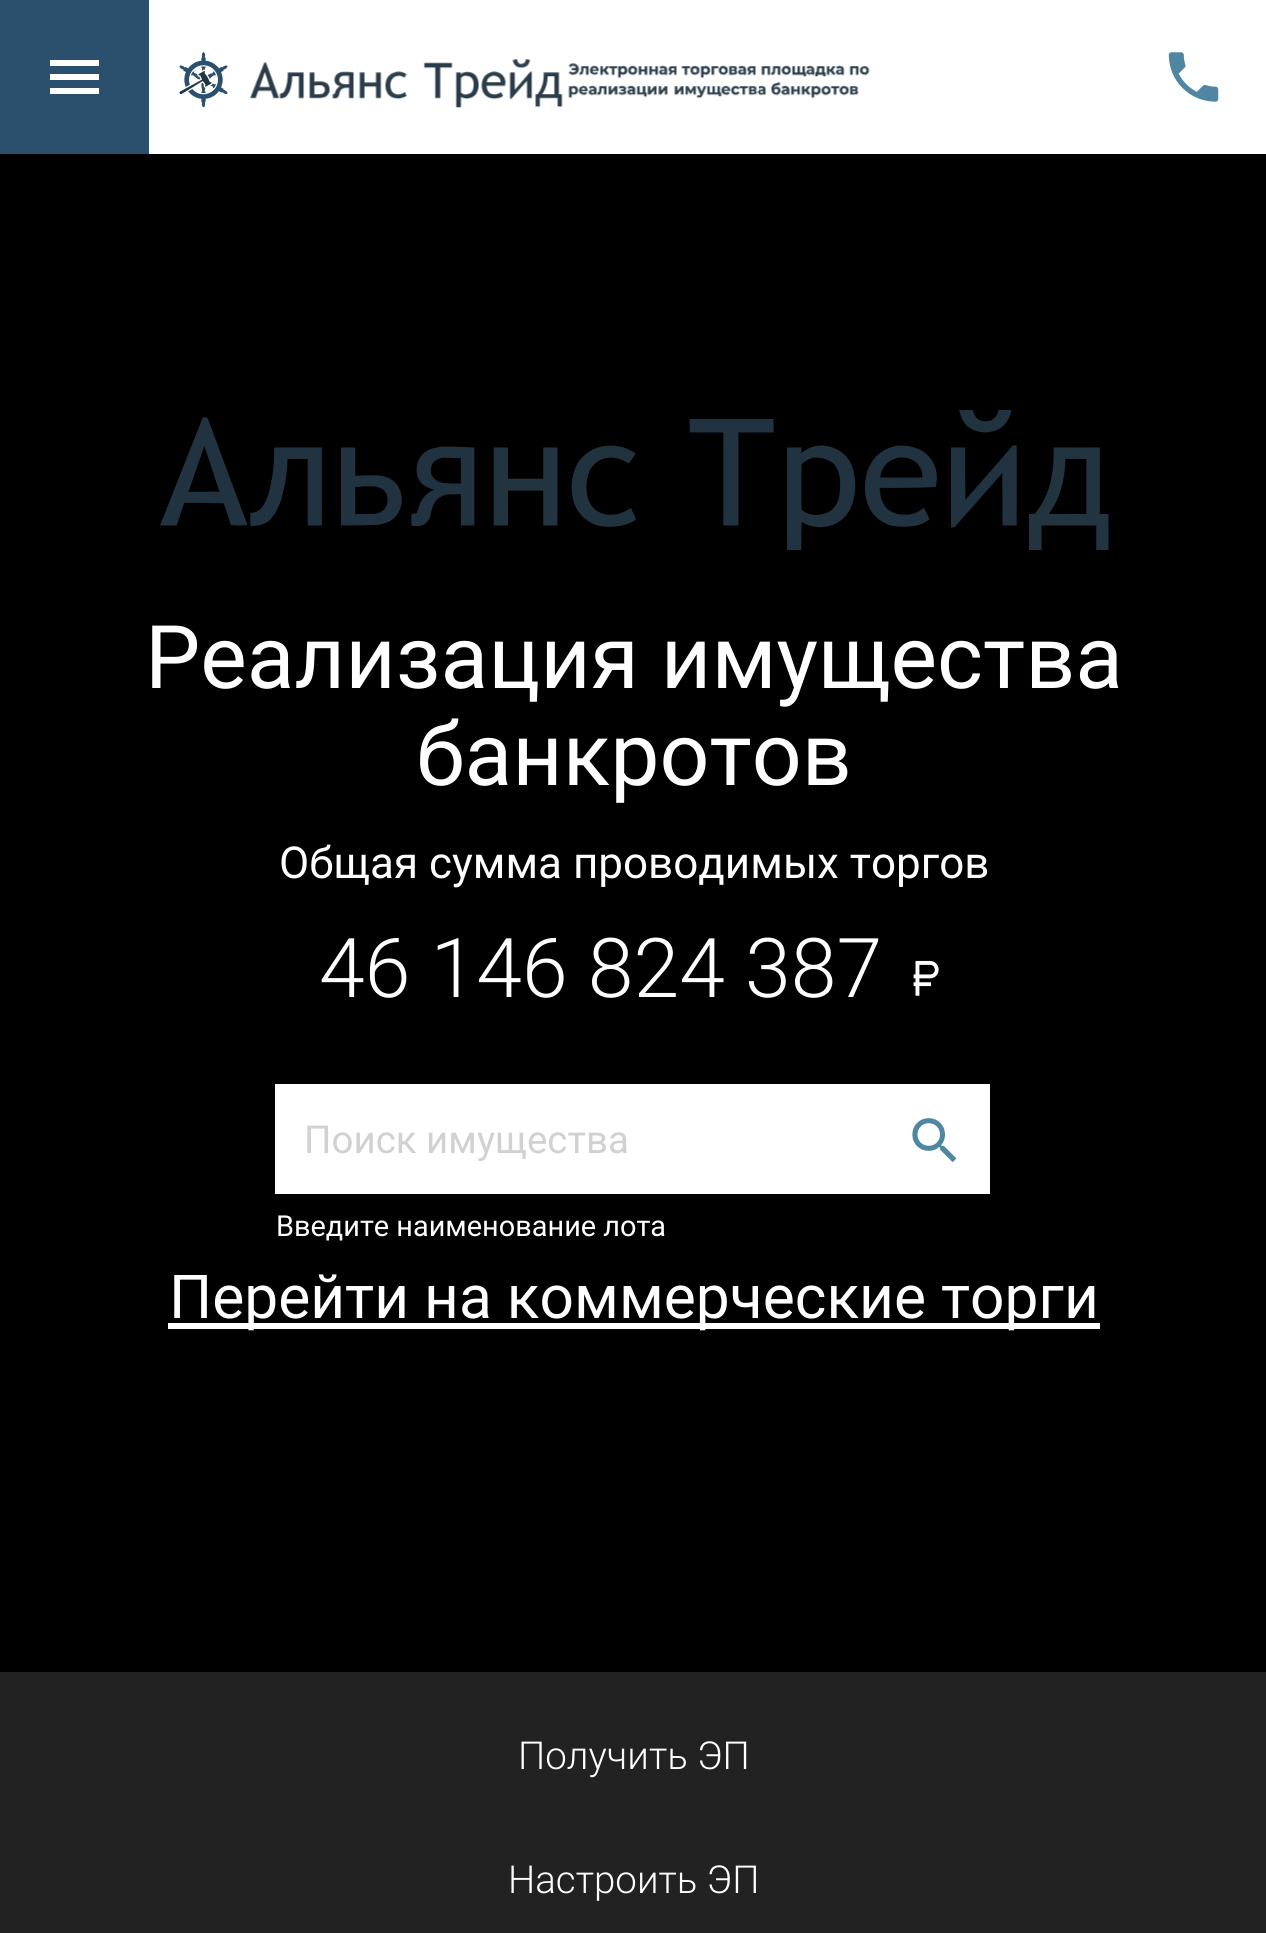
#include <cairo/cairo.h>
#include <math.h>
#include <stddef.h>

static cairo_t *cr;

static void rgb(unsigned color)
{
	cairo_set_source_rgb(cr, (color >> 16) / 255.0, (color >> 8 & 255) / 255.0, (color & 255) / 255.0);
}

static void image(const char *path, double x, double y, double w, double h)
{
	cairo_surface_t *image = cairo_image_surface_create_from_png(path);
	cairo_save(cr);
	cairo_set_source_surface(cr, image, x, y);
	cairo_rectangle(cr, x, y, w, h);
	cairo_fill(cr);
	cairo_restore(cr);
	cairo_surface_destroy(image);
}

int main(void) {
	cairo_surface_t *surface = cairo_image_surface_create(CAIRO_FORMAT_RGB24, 1266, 1933);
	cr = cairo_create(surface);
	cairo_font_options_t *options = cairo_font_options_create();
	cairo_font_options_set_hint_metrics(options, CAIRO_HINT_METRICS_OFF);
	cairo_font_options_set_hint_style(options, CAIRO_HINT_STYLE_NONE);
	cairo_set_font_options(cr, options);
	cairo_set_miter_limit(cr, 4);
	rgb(0x000000);
	cairo_paint(cr);
	rgb(0xffffff);
	cairo_rectangle(cr, 149, 0, 1117, 154);
	cairo_fill(cr);
	rgb(0x2b506e);
	cairo_rectangle(cr, 0, 0, 149, 154);
	cairo_fill(cr);
	rgb(0xffffff);
	cairo_new_path(cr);
	cairo_move_to(cr, 50, 60);
	cairo_line_to(cr, 99, 60);
	cairo_line_to(cr, 99, 66);
	cairo_line_to(cr, 50, 66);
	cairo_close_path(cr);
	cairo_move_to(cr, 50, 74);
	cairo_line_to(cr, 99, 74);
	cairo_line_to(cr, 99, 80);
	cairo_line_to(cr, 50, 80);
	cairo_close_path(cr);
	cairo_move_to(cr, 50, 88);
	cairo_line_to(cr, 99, 88);
	cairo_line_to(cr, 99, 94);
	cairo_line_to(cr, 50, 94);
	cairo_close_path(cr);
	cairo_fill(cr);
	image("img/1.png", 179, 52, 49, 55);
	image("img/2.png", 250, 59, 620, 49);
	image("img/3.png", 1168, 52, 51, 50);
	image("img/4.png", 160, 410, 949, 140);
	image("img/5.png", 913, 960, 26, 36);
	cairo_rectangle(cr, 275, 1084, 715, 110);
	cairo_fill(cr);
	image("img/6.png", 912, 1118, 45, 45);
	cairo_rectangle(cr, 168, 1323, 932, 6);
	cairo_fill(cr);
	rgb(0x222222);
	cairo_rectangle(cr, 0, 1672, 1266, 261);
	cairo_fill(cr);
	cairo_select_font_face(cr, "Roboto", CAIRO_FONT_SLANT_NORMAL, CAIRO_FONT_WEIGHT_NORMAL);
	cairo_set_font_size(cr, 87.75);
	rgb(0xffffff);
	cairo_move_to(cr, 145, 688);
	cairo_show_text(cr, "Реализация имущества");
	cairo_move_to(cr, 416, 785);
	cairo_show_text(cr, "банкротов");
	cairo_set_font_size(cr, 44);
	cairo_move_to(cr, 279, 878);
	cairo_show_text(cr, "Общая сумма проводимых торгов");
	cairo_select_font_face(cr, "Roboto Light", CAIRO_FONT_SLANT_NORMAL, CAIRO_FONT_WEIGHT_NORMAL);
	cairo_set_font_size(cr, 82.5);
	cairo_move_to(cr, 319, 997);
	cairo_show_text(cr, "46 146 824 387");
	cairo_save(cr);
	cairo_rectangle(cr, 303, 1117, 577, 44);
	cairo_clip(cr);
	cairo_select_font_face(cr, "Roboto", CAIRO_FONT_SLANT_NORMAL, CAIRO_FONT_WEIGHT_NORMAL);
	cairo_set_font_size(cr, 38.5);
	rgb(0xd1d1d1);
	cairo_move_to(cr, 304, 1153);
	cairo_show_text(cr, "Поиск имущества");
	cairo_restore(cr);
	cairo_select_font_face(cr, "Roboto", CAIRO_FONT_SLANT_NORMAL, CAIRO_FONT_WEIGHT_NORMAL);
	cairo_set_font_size(cr, 28.9);
	cairo_move_to(cr, 276, 1236);
	cairo_show_text(cr, "Введите наименование лота");
	cairo_set_font_size(cr, 60.5);
	cairo_move_to(cr, 169, 1318);
	cairo_show_text(cr, "Перейти на коммерческие торги");
	cairo_select_font_face(cr, "Roboto Light", CAIRO_FONT_SLANT_NORMAL, CAIRO_FONT_WEIGHT_NORMAL);
	cairo_set_font_size(cr, 38.5);
	cairo_move_to(cr, 518, 1769);
	cairo_show_text(cr, "Получить ЭП");
	cairo_move_to(cr, 508, 1893);
	cairo_show_text(cr, "Настроить ЭП");
	cairo_surface_write_to_png(surface, "page.png");
	cairo_font_options_destroy(options);
	cairo_destroy(cr);
	cairo_surface_destroy(surface);
	return 0;
}
